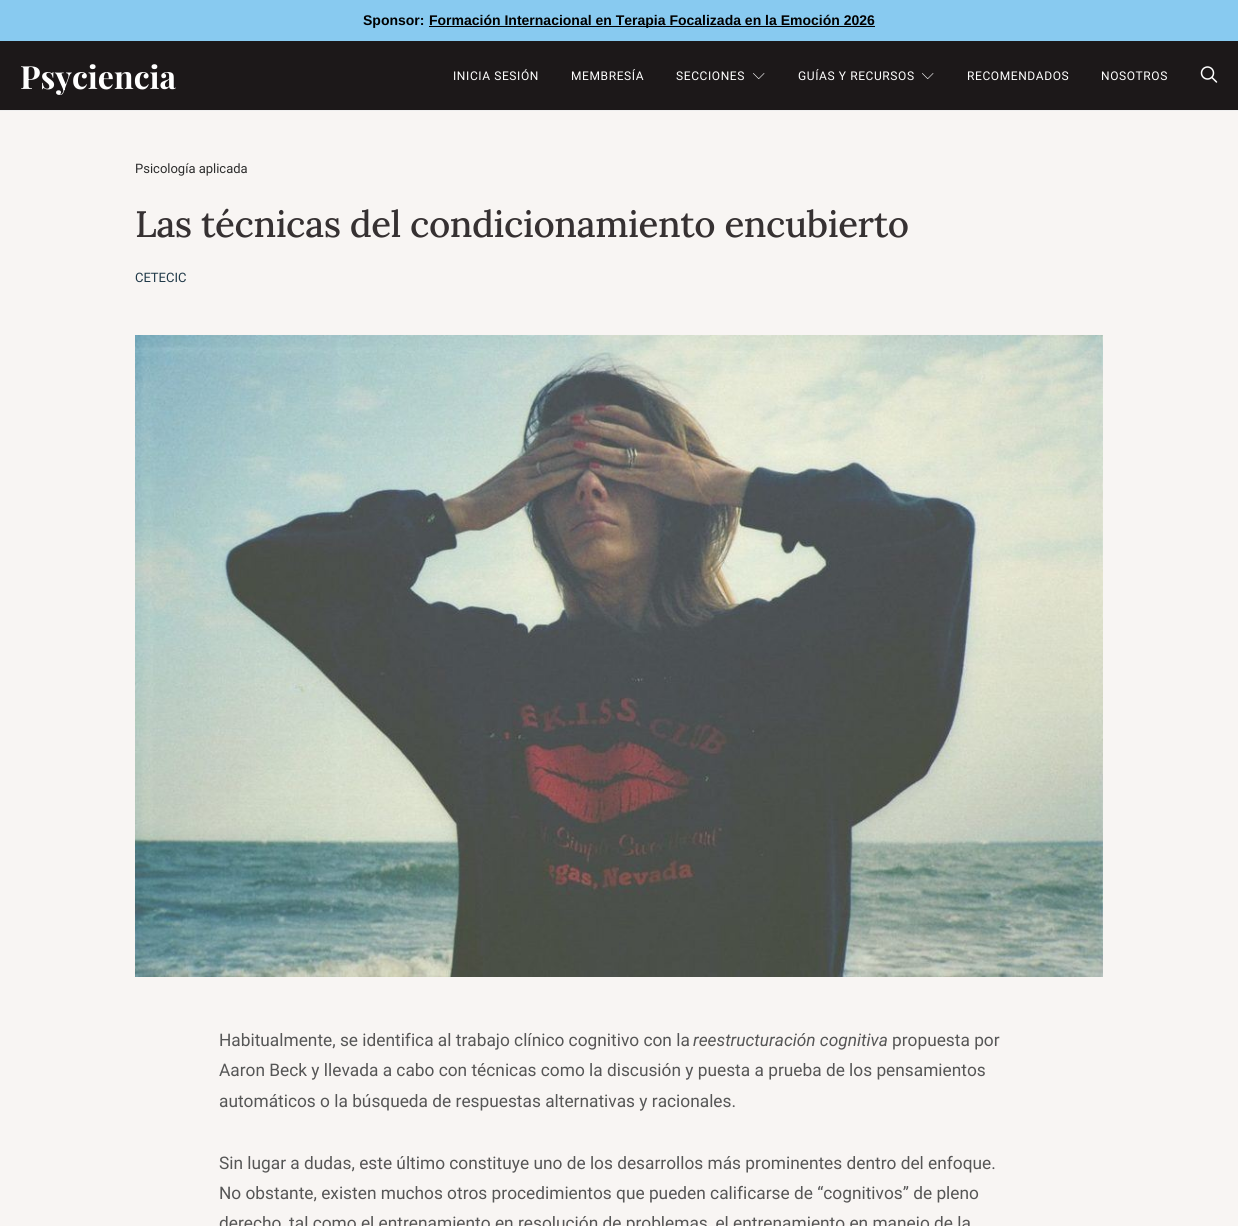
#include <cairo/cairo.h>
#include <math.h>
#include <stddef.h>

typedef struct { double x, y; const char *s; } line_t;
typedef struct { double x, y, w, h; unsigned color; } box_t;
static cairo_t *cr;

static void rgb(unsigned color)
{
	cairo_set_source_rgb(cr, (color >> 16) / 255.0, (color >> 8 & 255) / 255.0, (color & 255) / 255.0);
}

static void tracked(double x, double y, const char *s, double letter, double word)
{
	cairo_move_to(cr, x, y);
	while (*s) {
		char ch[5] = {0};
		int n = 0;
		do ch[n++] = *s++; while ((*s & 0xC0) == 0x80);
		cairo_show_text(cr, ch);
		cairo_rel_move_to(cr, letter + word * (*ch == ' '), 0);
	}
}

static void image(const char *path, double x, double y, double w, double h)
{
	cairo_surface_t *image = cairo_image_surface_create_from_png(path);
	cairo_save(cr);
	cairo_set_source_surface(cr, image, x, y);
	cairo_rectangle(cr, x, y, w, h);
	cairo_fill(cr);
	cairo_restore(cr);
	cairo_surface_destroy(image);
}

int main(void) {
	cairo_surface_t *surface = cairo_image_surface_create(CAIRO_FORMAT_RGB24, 1238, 1226);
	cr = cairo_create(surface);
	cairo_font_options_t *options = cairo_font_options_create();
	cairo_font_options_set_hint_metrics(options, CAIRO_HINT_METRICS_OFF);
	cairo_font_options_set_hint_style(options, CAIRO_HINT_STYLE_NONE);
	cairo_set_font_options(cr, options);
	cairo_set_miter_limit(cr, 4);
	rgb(0xf8f5f3);
	cairo_paint(cr);
	{
		static const box_t items[] = {
			{0, 0, 1238, 41, 0x88caf0},
			{429, 26, 446, 1, 0x000000},
			{0, 41, 1238, 69, 0x1c1819},
			{0, 110, 1238, 1, 0xeeeeee},
		};
		for (size_t i = 0; i < sizeof items / sizeof *items; i++) {
			rgb(items[i].color);
			cairo_rectangle(cr, items[i].x, items[i].y, items[i].w, items[i].h);
			cairo_fill(cr);
		}
	}
	image("img/1.png", 753, 73, 12, 6);
	image("img/1.png", 922, 73, 12, 6);
	image("img/2.png", 1200, 66, 18, 17);
	image("img/3.png", 135, 335, 968, 642);
	cairo_select_font_face(cr, "Liberation Sans", CAIRO_FONT_SLANT_NORMAL, CAIRO_FONT_WEIGHT_BOLD);
	cairo_set_font_size(cr, 14);
	rgb(0x000000);
	cairo_move_to(cr, 363, 25);
	cairo_show_text(cr, "Sponsor:");
	cairo_move_to(cr, 429, 25);
	cairo_show_text(cr, "Formación Internacional en Terapia Focalizada en la Emoción 2026");
	cairo_select_font_face(cr, "Playfair Display", CAIRO_FONT_SLANT_NORMAL, CAIRO_FONT_WEIGHT_BOLD);
	cairo_set_font_size(cr, 32);
	rgb(0xffffff);
	cairo_move_to(cr, 20, 89);
	cairo_show_text(cr, "Psyciencia");
	cairo_select_font_face(cr, "Roboto", CAIRO_FONT_SLANT_NORMAL, CAIRO_FONT_WEIGHT_NORMAL);
	cairo_set_font_size(cr, 12);
	{
		static const line_t items[] = {
			{453, 80, "INICIA SESIÓN"},
			{571, 80, "MEMBRESÍA"},
			{676, 80, "SECCIONES"},
			{798, 80, "GUÍAS Y RECURSOS"},
			{967, 80, "RECOMENDADOS"},
			{1101, 80, "NOSOTROS"},
		};
		for (size_t i = 0; i < sizeof items / sizeof *items; i++) {
			tracked(items[i].x, items[i].y, items[i].s, 0.6, 0);
		}
	}
	cairo_set_font_size(cr, 13);
	rgb(0x2d2d2d);
	cairo_move_to(cr, 135, 173);
	cairo_show_text(cr, "Psicología aplicada");
	cairo_select_font_face(cr, "Lora Medium", CAIRO_FONT_SLANT_NORMAL, CAIRO_FONT_WEIGHT_NORMAL);
	cairo_set_font_size(cr, 36.8);
	rgb(0x363132);
	tracked(135, 237, "Las técnicas del condicionamiento encubierto", -0.45, 0);
	cairo_select_font_face(cr, "Roboto", CAIRO_FONT_SLANT_NORMAL, CAIRO_FONT_WEIGHT_NORMAL);
	cairo_set_font_size(cr, 13);
	rgb(0x213a49);
	cairo_move_to(cr, 135, 282);
	cairo_show_text(cr, "CETECIC");
	cairo_set_font_size(cr, 17.3);
	rgb(0x565656);
	cairo_move_to(cr, 219, 1046);
	cairo_show_text(cr, "Habitualmente, se identifica al trabajo clínico cognitivo con la");
	cairo_select_font_face(cr, "Roboto", CAIRO_FONT_SLANT_ITALIC, CAIRO_FONT_WEIGHT_NORMAL);
	cairo_move_to(cr, 693, 1046);
	cairo_show_text(cr, "reestructuración cognitiva");
	cairo_select_font_face(cr, "Roboto", CAIRO_FONT_SLANT_NORMAL, CAIRO_FONT_WEIGHT_NORMAL);
	{
		static const line_t items[] = {
			{892, 1046, "propuesta por"},
			{219, 1076, "Aaron Beck y llevada a cabo con técnicas como la discusión y puesta a prueba de los pensamientos"},
			{219, 1107, "automáticos o la búsqueda de respuestas alternativas y racionales."},
			{219, 1169, "Sin lugar a dudas, este último constituye uno de los desarrollos más prominentes dentro del enfoque."},
			{219, 1199, "No obstante, existen muchos otros procedimientos que pueden calificarse de “cognitivos” de pleno"},
			{219, 1229, "derecho, tal como el entrenamiento en resolución de problemas, el entrenamiento en manejo de la"},
		};
		for (size_t i = 0; i < sizeof items / sizeof *items; i++) {
			cairo_move_to(cr, items[i].x, items[i].y);
			cairo_show_text(cr, items[i].s);
		}
	}
	cairo_surface_write_to_png(surface, "page.png");
	cairo_font_options_destroy(options);
	cairo_destroy(cr);
	cairo_surface_destroy(surface);
	return 0;
}
